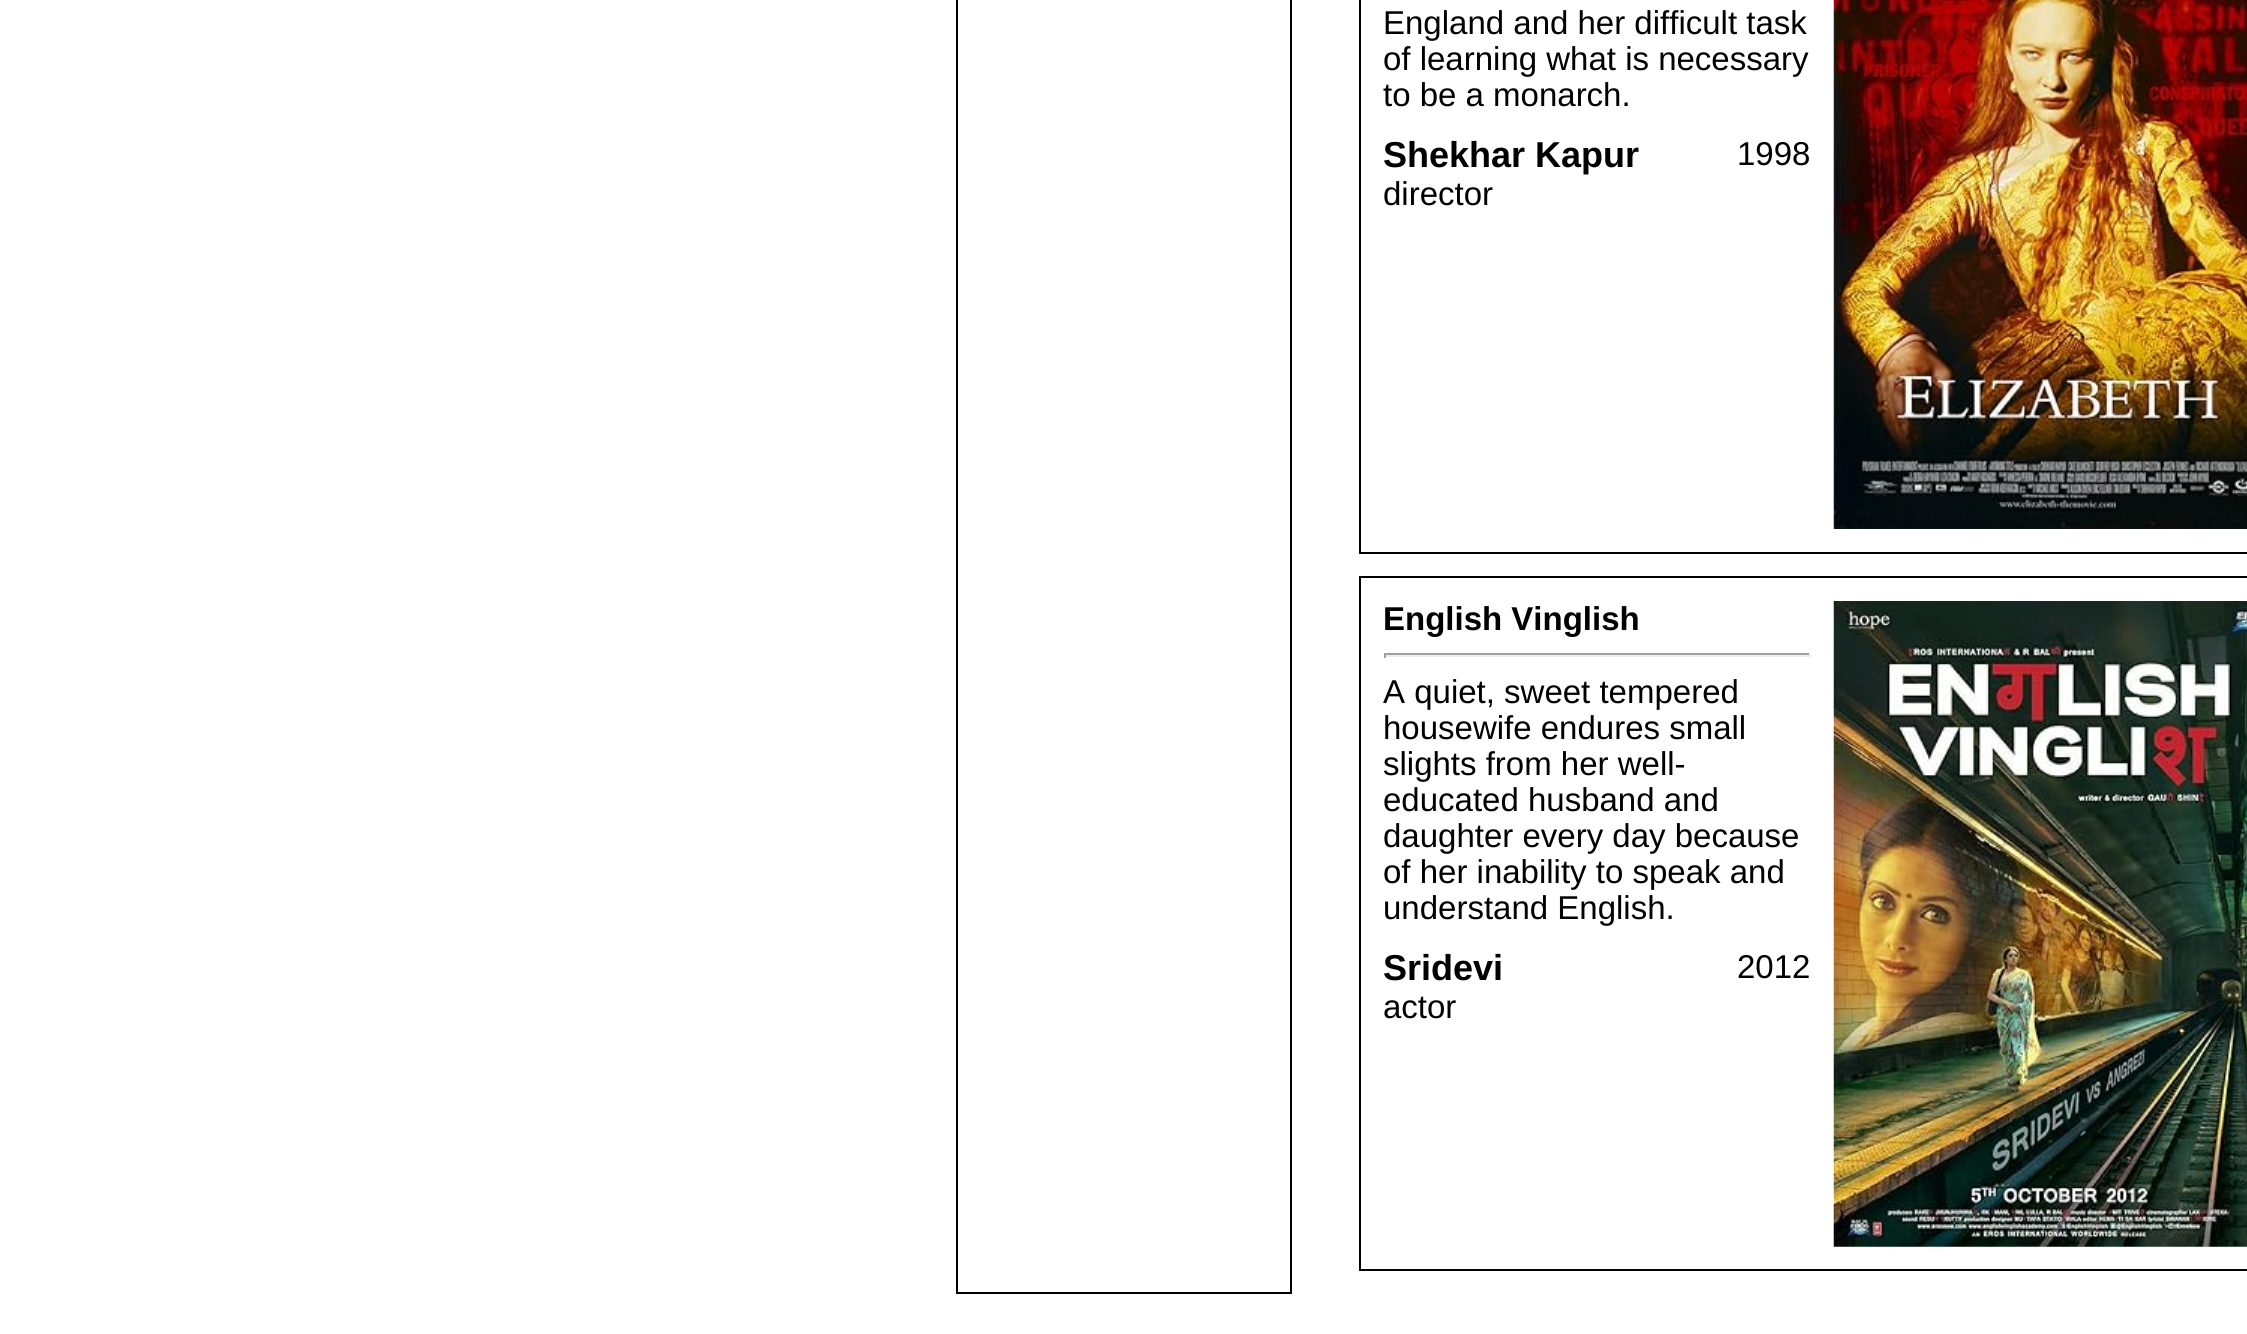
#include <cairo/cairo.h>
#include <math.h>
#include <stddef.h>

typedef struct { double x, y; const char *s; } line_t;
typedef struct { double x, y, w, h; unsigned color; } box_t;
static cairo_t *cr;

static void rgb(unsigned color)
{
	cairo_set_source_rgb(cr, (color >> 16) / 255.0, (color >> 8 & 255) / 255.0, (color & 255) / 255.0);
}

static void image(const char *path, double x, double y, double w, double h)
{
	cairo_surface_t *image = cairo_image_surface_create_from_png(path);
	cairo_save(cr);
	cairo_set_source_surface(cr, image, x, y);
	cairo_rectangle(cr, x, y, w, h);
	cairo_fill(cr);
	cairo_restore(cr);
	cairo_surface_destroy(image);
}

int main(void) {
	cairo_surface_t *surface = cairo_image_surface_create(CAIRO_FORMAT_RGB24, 2247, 1334);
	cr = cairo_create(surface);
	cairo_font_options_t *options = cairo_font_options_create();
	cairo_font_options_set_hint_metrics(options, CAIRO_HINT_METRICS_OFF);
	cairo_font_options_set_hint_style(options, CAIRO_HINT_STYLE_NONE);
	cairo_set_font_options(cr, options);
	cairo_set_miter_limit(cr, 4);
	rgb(0xffffff);
	cairo_paint(cr);
	cairo_rectangle(cr, 957, -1, 334, 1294);
	rgb(0x000000);
	cairo_stroke(cr);
	cairo_rectangle(cr, 1360, -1, 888, 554);
	cairo_stroke(cr);
	image("img/1.png", 1833, 0, 414, 529);
	cairo_rectangle(cr, 1360, 577, 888, 693);
	cairo_stroke(cr);
	{
		static const box_t items[] = {
			{1384, 653, 427, 2, 0x9f9f9f},
			{1809, 653, 2, 5, 0xeeeeee},
			{1384, 655, 427, 2, 0xeeeeee},
			{1384, 653, 2, 5, 0x9f9f9f},
		};
		for (size_t i = 0; i < sizeof items / sizeof *items; i++) {
			rgb(items[i].color);
			cairo_rectangle(cr, items[i].x, items[i].y, items[i].w, items[i].h);
			cairo_fill(cr);
		}
	}
	image("img/2.png", 1833, 601, 414, 646);
	cairo_select_font_face(cr, "Liberation Sans", CAIRO_FONT_SLANT_NORMAL, CAIRO_FONT_WEIGHT_NORMAL);
	cairo_set_font_size(cr, 33);
	rgb(0x000000);
	{
		static const line_t items[] = {
			{1383, 34, "England and her difficult task"},
			{1383, 70, "of learning what is necessary"},
			{1383, 106, "to be a monarch."},
		};
		for (size_t i = 0; i < sizeof items / sizeof *items; i++) {
			cairo_move_to(cr, items[i].x, items[i].y);
			cairo_show_text(cr, items[i].s);
		}
	}
	cairo_select_font_face(cr, "Liberation Sans", CAIRO_FONT_SLANT_NORMAL, CAIRO_FONT_WEIGHT_BOLD);
	cairo_set_font_size(cr, 36);
	cairo_move_to(cr, 1383, 167);
	cairo_show_text(cr, "Shekhar Kapur");
	cairo_select_font_face(cr, "Liberation Sans", CAIRO_FONT_SLANT_NORMAL, CAIRO_FONT_WEIGHT_NORMAL);
	cairo_set_font_size(cr, 33);
	cairo_move_to(cr, 1737, 165);
	cairo_show_text(cr, "1998");
	cairo_move_to(cr, 1383, 205);
	cairo_show_text(cr, "director");
	cairo_select_font_face(cr, "Liberation Sans", CAIRO_FONT_SLANT_NORMAL, CAIRO_FONT_WEIGHT_BOLD);
	cairo_move_to(cr, 1383, 630);
	cairo_show_text(cr, "English Vinglish");
	cairo_select_font_face(cr, "Liberation Sans", CAIRO_FONT_SLANT_NORMAL, CAIRO_FONT_WEIGHT_NORMAL);
	{
		static const line_t items[] = {
			{1383, 703, "A quiet, sweet tempered"},
			{1383, 739, "housewife endures small"},
			{1383, 775, "slights from her well-"},
			{1383, 811, "educated husband and"},
			{1383, 847, "daughter every day because"},
			{1383, 883, "of her inability to speak and"},
			{1383, 919, "understand English."},
		};
		for (size_t i = 0; i < sizeof items / sizeof *items; i++) {
			cairo_move_to(cr, items[i].x, items[i].y);
			cairo_show_text(cr, items[i].s);
		}
	}
	cairo_select_font_face(cr, "Liberation Sans", CAIRO_FONT_SLANT_NORMAL, CAIRO_FONT_WEIGHT_BOLD);
	cairo_set_font_size(cr, 36);
	cairo_move_to(cr, 1383, 980);
	cairo_show_text(cr, "Sridevi");
	cairo_select_font_face(cr, "Liberation Sans", CAIRO_FONT_SLANT_NORMAL, CAIRO_FONT_WEIGHT_NORMAL);
	cairo_set_font_size(cr, 33);
	cairo_move_to(cr, 1737, 978);
	cairo_show_text(cr, "2012");
	cairo_move_to(cr, 1383, 1018);
	cairo_show_text(cr, "actor");
	cairo_surface_write_to_png(surface, "page.png");
	cairo_font_options_destroy(options);
	cairo_destroy(cr);
	cairo_surface_destroy(surface);
	return 0;
}
